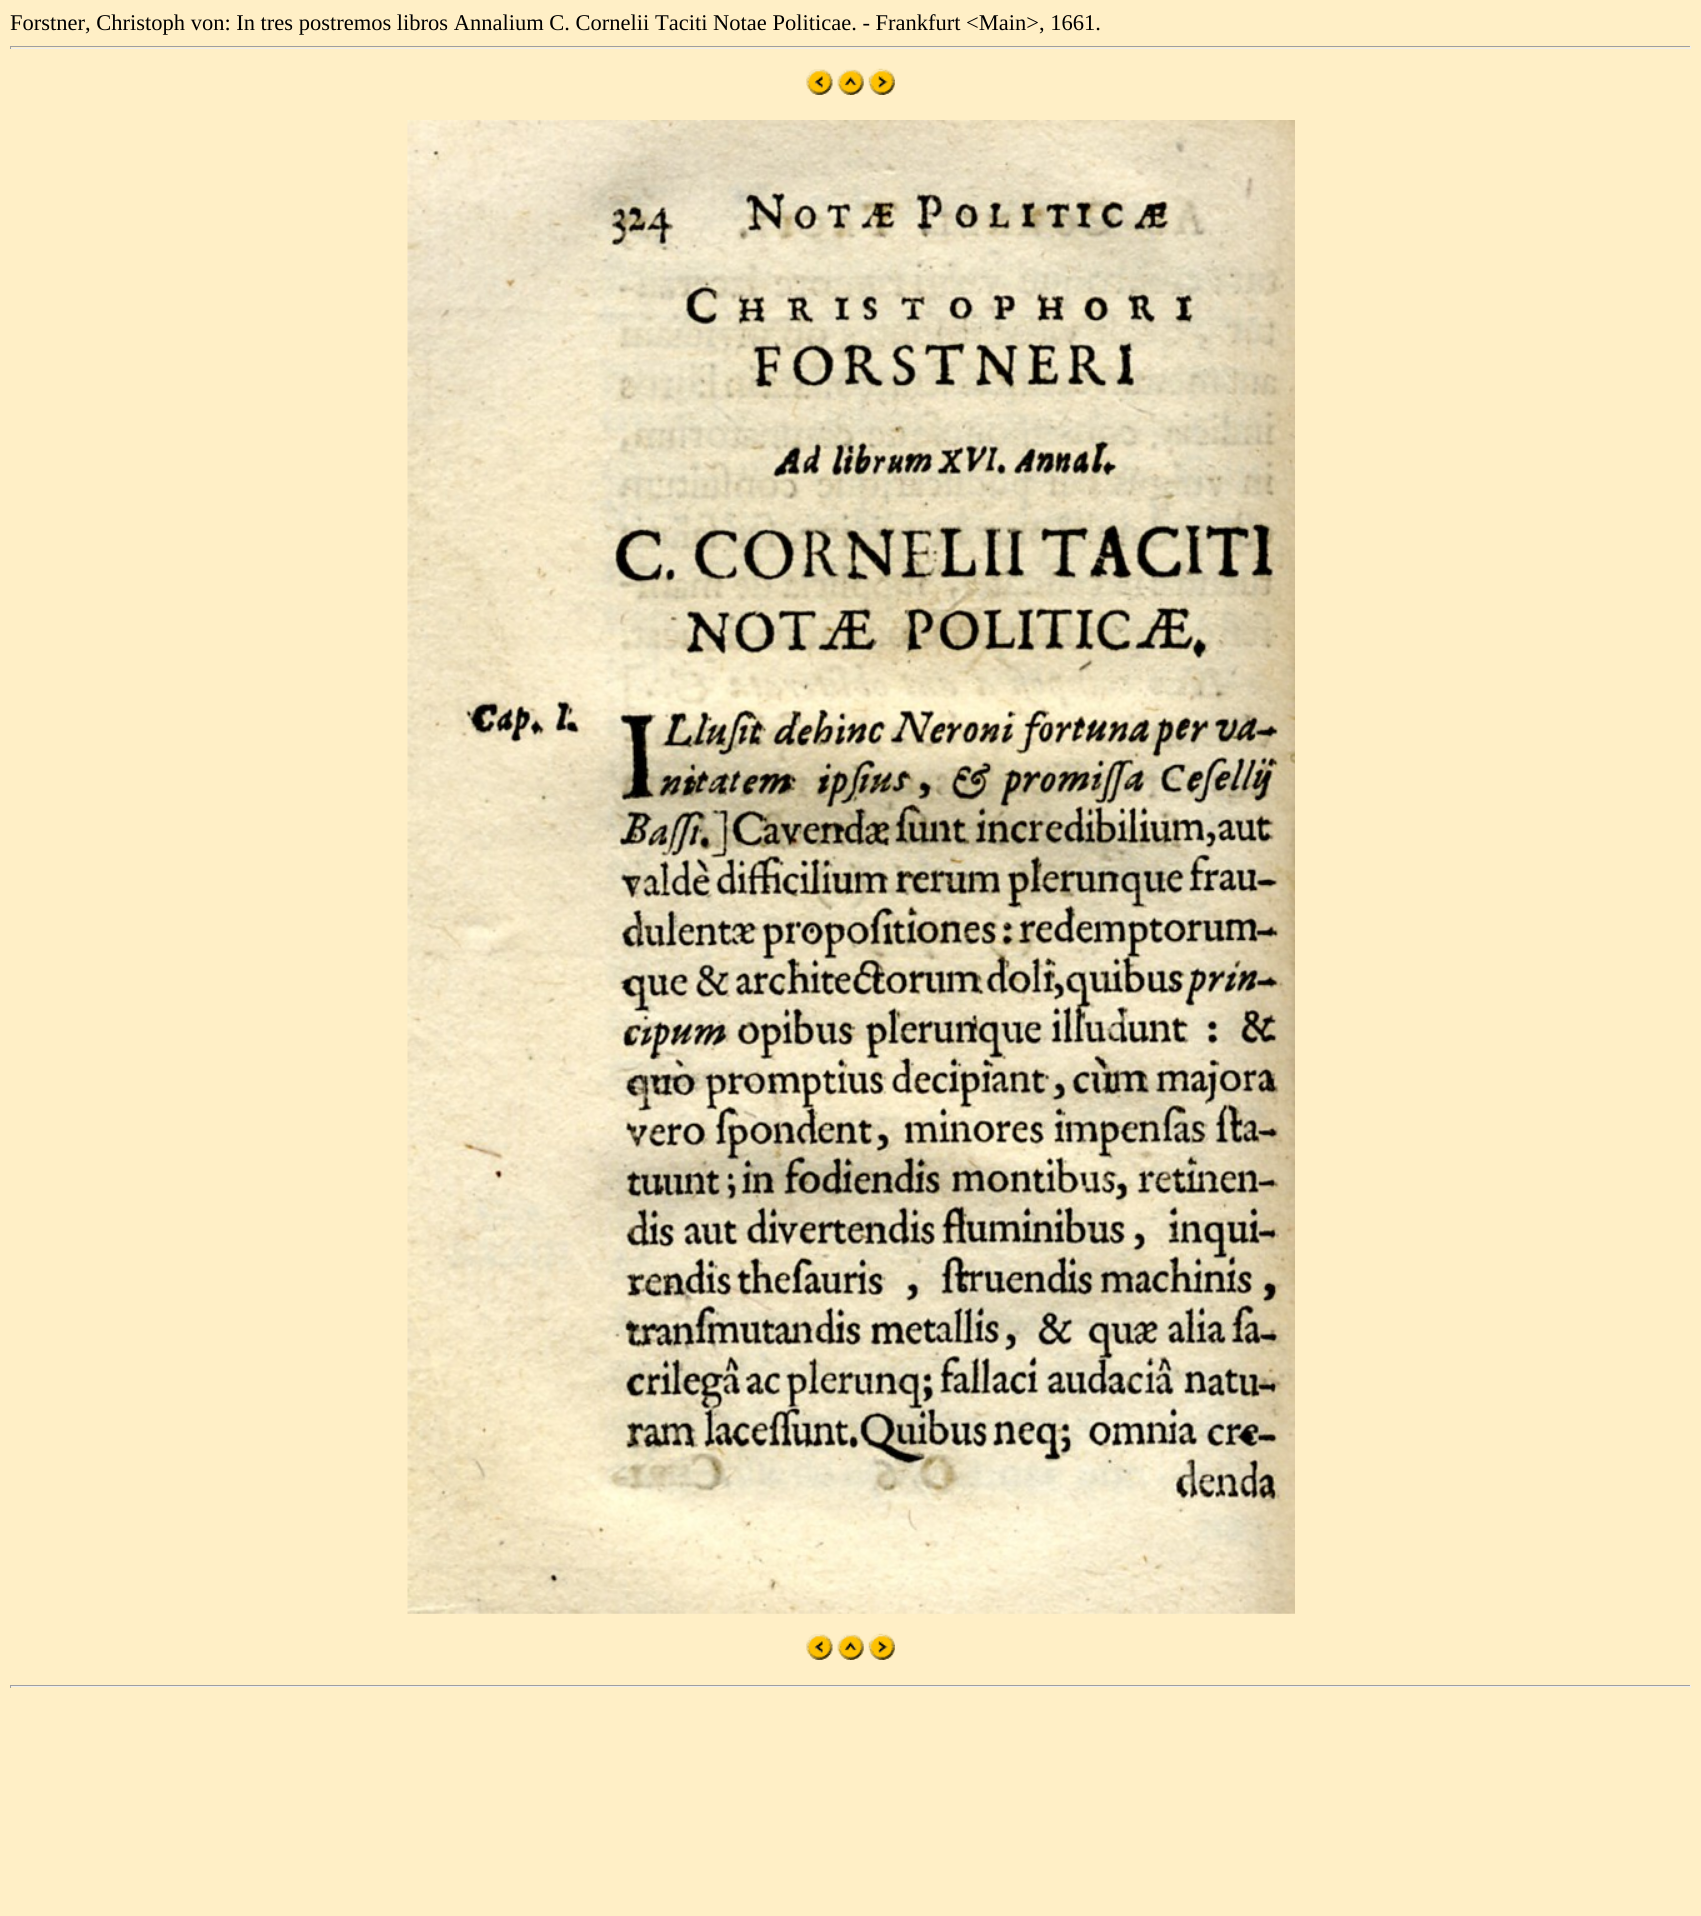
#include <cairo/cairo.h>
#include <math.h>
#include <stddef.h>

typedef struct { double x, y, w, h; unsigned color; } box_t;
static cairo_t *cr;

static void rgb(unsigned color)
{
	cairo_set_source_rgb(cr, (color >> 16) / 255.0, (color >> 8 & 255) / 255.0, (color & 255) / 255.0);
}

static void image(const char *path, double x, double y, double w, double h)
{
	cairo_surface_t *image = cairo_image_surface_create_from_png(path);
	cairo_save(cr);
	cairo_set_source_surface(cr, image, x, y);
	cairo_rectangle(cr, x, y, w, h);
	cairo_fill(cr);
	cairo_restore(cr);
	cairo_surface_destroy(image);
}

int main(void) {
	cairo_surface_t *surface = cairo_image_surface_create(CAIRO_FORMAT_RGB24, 1701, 1916);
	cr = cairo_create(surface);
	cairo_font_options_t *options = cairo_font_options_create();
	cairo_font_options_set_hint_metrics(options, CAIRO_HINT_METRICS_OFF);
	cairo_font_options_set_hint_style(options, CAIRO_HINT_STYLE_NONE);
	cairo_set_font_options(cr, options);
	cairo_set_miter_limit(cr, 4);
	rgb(0xffefc6);
	cairo_paint(cr);
	{
		static const box_t items[] = {
			{10, 46, 1681, 1, 0x9f9f9f},
			{1690, 46, 1, 3, 0xeeeeee},
			{10, 48, 1681, 1, 0xeeeeee},
			{10, 46, 1, 3, 0x9f9f9f},
		};
		for (size_t i = 0; i < sizeof items / sizeof *items; i++) {
			rgb(items[i].color);
			cairo_rectangle(cr, items[i].x, items[i].y, items[i].w, items[i].h);
			cairo_fill(cr);
		}
	}
	image("img/1.png", 806, 69, 27, 26);
	image("img/2.png", 837, 69, 27, 26);
	image("img/3.png", 868, 68, 27, 27);
	image("img/4.png", 407, 120, 888, 1494);
	image("img/1.png", 806, 1634, 27, 26);
	image("img/2.png", 837, 1634, 27, 26);
	image("img/3.png", 868, 1633, 27, 27);
	{
		static const box_t items[] = {
			{10, 1685, 1681, 1, 0x9f9f9f},
			{1690, 1685, 1, 3, 0xeeeeee},
			{10, 1686, 1681, 1, 0xeeeeee},
			{10, 1685, 1, 3, 0x9f9f9f},
		};
		for (size_t i = 0; i < sizeof items / sizeof *items; i++) {
			rgb(items[i].color);
			cairo_rectangle(cr, items[i].x, items[i].y, items[i].w, items[i].h);
			cairo_fill(cr);
		}
	}
	cairo_select_font_face(cr, "Liberation Serif", CAIRO_FONT_SLANT_NORMAL, CAIRO_FONT_WEIGHT_NORMAL);
	cairo_set_font_size(cr, 22.5);
	rgb(0x000000);
	cairo_move_to(cr, 10, 30);
	cairo_show_text(cr, "Forstner, Christoph von: In tres postremos libros Annalium C. Cornelii Taciti Notae Politicae. - Frankfurt <Main>, 1661.");
	cairo_surface_write_to_png(surface, "page.png");
	cairo_font_options_destroy(options);
	cairo_destroy(cr);
	cairo_surface_destroy(surface);
	return 0;
}
